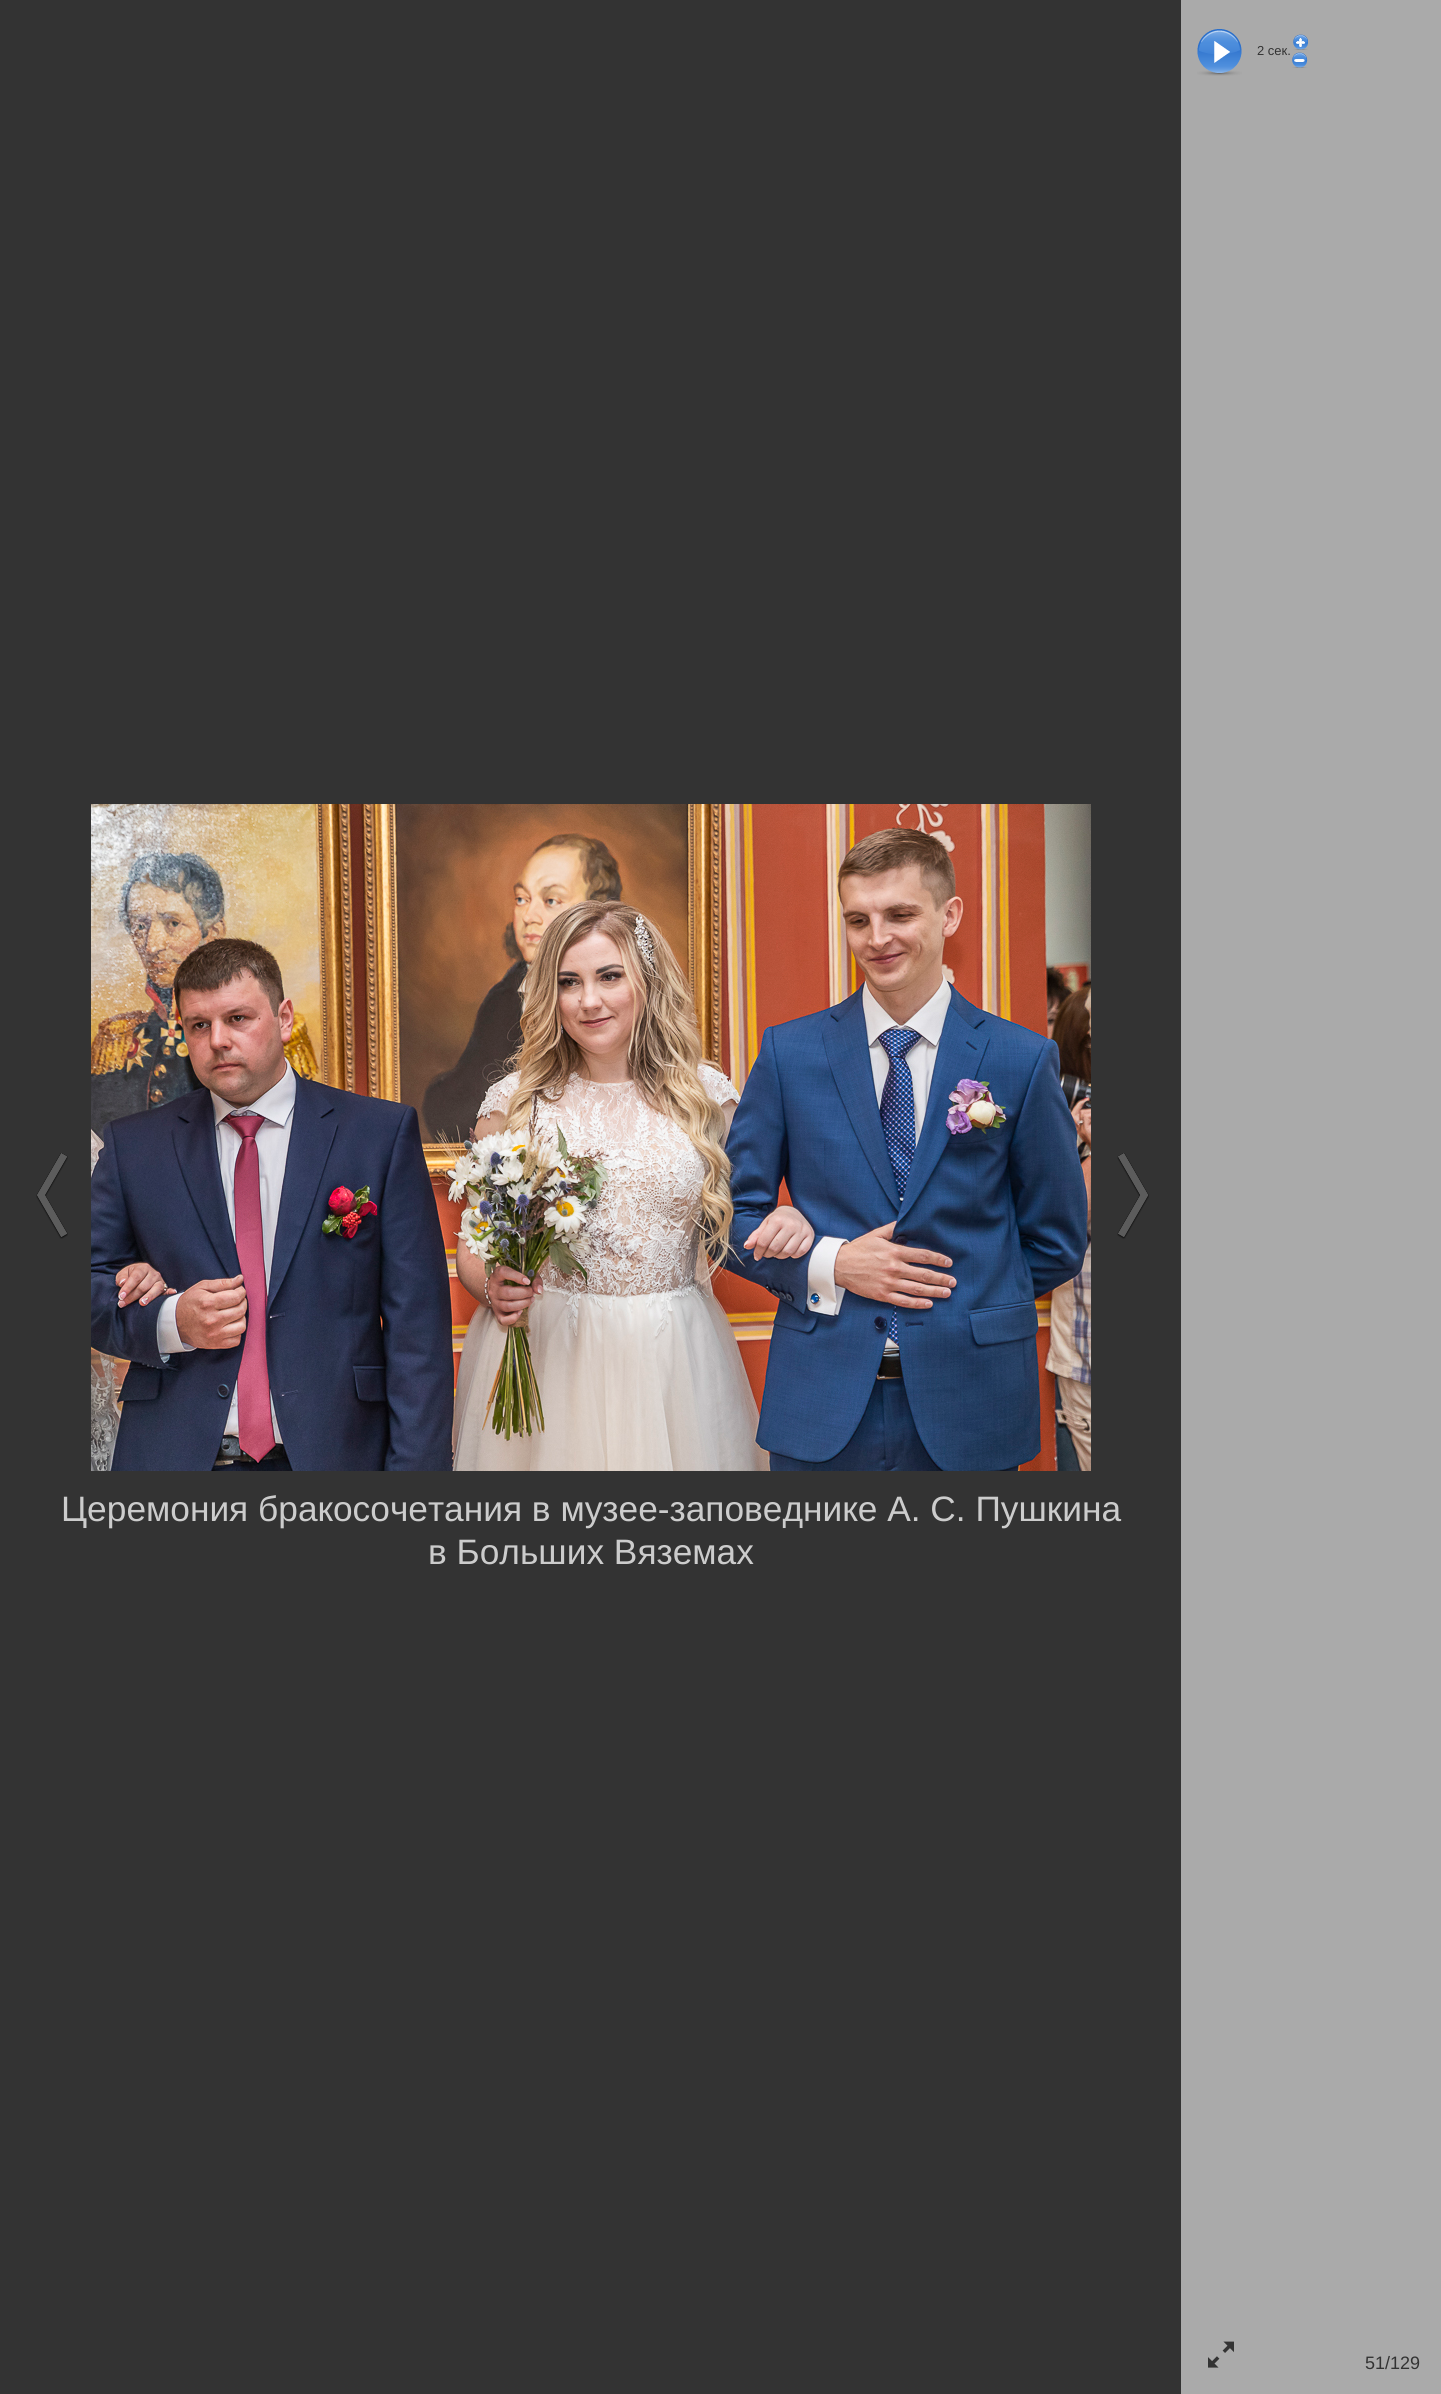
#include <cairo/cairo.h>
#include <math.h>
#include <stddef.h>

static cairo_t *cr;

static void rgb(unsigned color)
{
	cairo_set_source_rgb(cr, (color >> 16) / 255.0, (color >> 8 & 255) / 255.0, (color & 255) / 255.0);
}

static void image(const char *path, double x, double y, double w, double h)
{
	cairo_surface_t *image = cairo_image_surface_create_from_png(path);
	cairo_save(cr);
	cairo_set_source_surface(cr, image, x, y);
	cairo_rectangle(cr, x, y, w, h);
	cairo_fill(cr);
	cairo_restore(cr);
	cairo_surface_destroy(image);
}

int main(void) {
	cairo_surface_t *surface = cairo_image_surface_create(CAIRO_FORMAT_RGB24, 1441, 2394);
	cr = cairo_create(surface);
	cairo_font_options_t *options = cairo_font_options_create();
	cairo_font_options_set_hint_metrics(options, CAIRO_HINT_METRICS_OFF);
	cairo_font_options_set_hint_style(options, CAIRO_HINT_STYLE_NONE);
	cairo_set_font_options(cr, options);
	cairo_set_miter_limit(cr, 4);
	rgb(0x333333);
	cairo_paint(cr);
	image("img/1.png", 36, 1153, 32, 86);
	image("img/2.png", 91, 804, 1000, 667);
	image("img/3.png", 1117, 1153, 32, 86);
	rgb(0xaaaaaa);
	cairo_rectangle(cr, 1181, 0, 260, 2394);
	cairo_fill(cr);
	image("img/4.png", 1197, 29, 45, 47);
	image("img/5.png", 1293, 34, 15, 16);
	image("img/6.png", 1292, 52, 16, 16);
	image("img/7.png", 1208, 2341, 26, 27);
	cairo_select_font_face(cr, "Liberation Sans", CAIRO_FONT_SLANT_NORMAL, CAIRO_FONT_WEIGHT_NORMAL);
	cairo_set_font_size(cr, 35.3);
	rgb(0xcccccc);
	cairo_move_to(cr, 61, 1521);
	cairo_show_text(cr, "Церемония бракосочетания в музее-заповеднике А. С. Пушкина");
	cairo_move_to(cr, 428, 1564);
	cairo_show_text(cr, "в Больших Вяземах");
	cairo_set_font_size(cr, 13);
	rgb(0x333333);
	cairo_move_to(cr, 1257, 55);
	cairo_show_text(cr, "2 сек.");
	cairo_set_font_size(cr, 18);
	cairo_move_to(cr, 1365, 2369);
	cairo_show_text(cr, "51/129");
	cairo_surface_write_to_png(surface, "page.png");
	cairo_font_options_destroy(options);
	cairo_destroy(cr);
	cairo_surface_destroy(surface);
	return 0;
}
